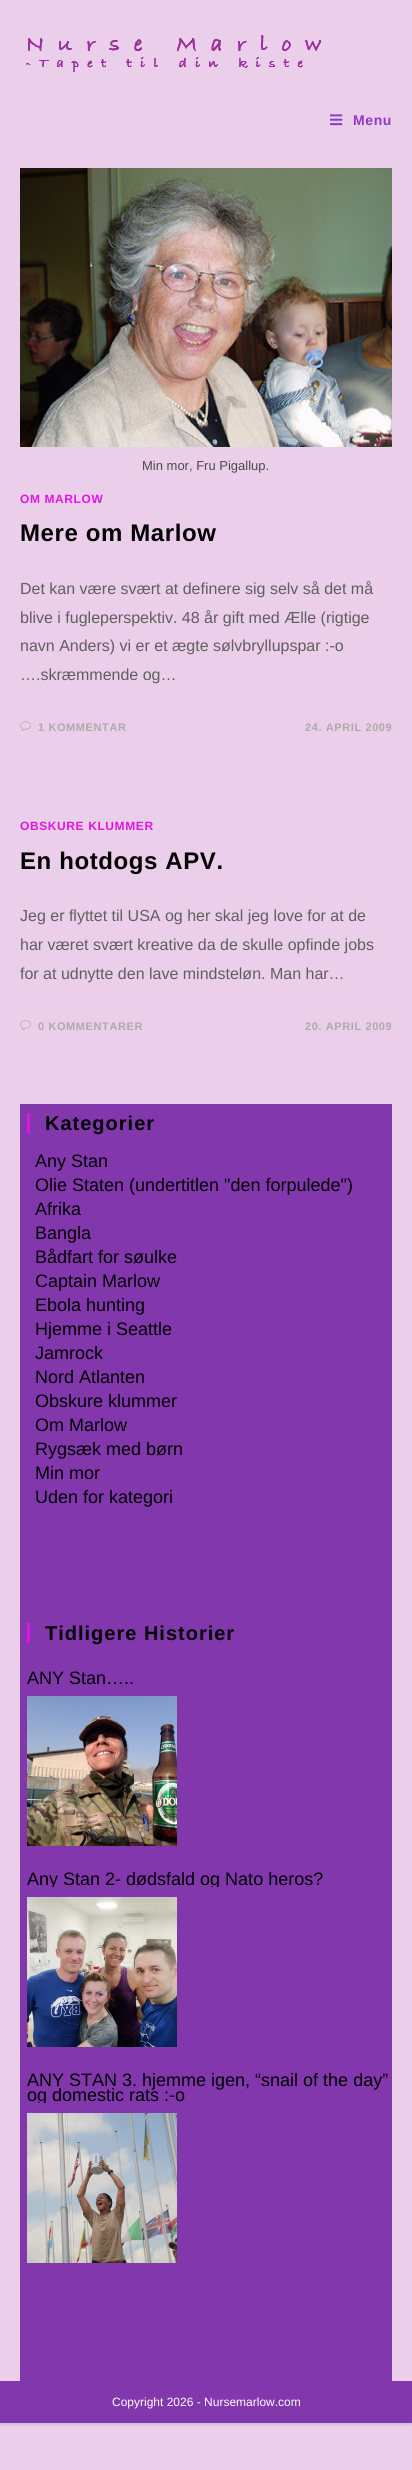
#include <cairo/cairo.h>
#include <math.h>
#include <stddef.h>

typedef struct { double x, y; const char *s; } line_t;
typedef struct { double x, y, w, h; unsigned color; } box_t;
static cairo_t *cr;

static void rgb(unsigned color)
{
	cairo_set_source_rgb(cr, (color >> 16) / 255.0, (color >> 8 & 255) / 255.0, (color & 255) / 255.0);
}

static void tracked(double x, double y, const char *s, double letter, double word)
{
	cairo_move_to(cr, x, y);
	while (*s) {
		char ch[5] = {0};
		int n = 0;
		do ch[n++] = *s++; while ((*s & 0xC0) == 0x80);
		cairo_show_text(cr, ch);
		cairo_rel_move_to(cr, letter + word * (*ch == ' '), 0);
	}
}

static void rrect(double x, double y, double w, double h, double r)
{
	cairo_new_sub_path(cr);
	cairo_arc(cr, x + w - r, y + h - r, r, 0, M_PI / 2);
	cairo_arc(cr, x + r, y + h - r, r, M_PI / 2, M_PI);
	cairo_arc(cr, x + r, y + r, r, M_PI, 1.5 * M_PI);
	cairo_arc(cr, x + w - r, y + r, r, 1.5 * M_PI, 2 * M_PI);
	cairo_close_path(cr);
}

static void soft_shadow(double x, double y, double w, double h, double r, double blur, double alpha)
{
	cairo_push_group_with_content(cr, CAIRO_CONTENT_ALPHA);
	cairo_set_operator(cr, CAIRO_OPERATOR_SOURCE);
	for (int i = 15; i >= -15 && fmin(w, h) + blur * i / 3 > 0; i -= 2) {
		double e = blur * i / 6;
		cairo_set_source_rgba(cr, 0, 0, 0, alpha * erfc((i - 1) / 8.5) / 2);
		rrect(x - e, y - e, w + 2 * e, h + 2 * e, fmax(0, fmin(r + e + blur * .6, fmin(w, h) / 2 + e)));
		cairo_fill(cr);
	}
	cairo_pattern_t *soft = cairo_pop_group(cr);
	cairo_mask(cr, soft);
	cairo_pattern_destroy(soft);
}

static void image(const char *path, double x, double y, double w, double h)
{
	cairo_surface_t *image = cairo_image_surface_create_from_png(path);
	cairo_save(cr);
	cairo_set_source_surface(cr, image, x, y);
	cairo_rectangle(cr, x, y, w, h);
	cairo_fill(cr);
	cairo_restore(cr);
	cairo_surface_destroy(image);
}

int main(void) {
	cairo_surface_t *surface = cairo_image_surface_create(CAIRO_FORMAT_RGB24, 412, 2470);
	cr = cairo_create(surface);
	cairo_font_options_t *options = cairo_font_options_create();
	cairo_font_options_set_hint_metrics(options, CAIRO_HINT_METRICS_OFF);
	cairo_font_options_set_hint_style(options, CAIRO_HINT_STYLE_NONE);
	cairo_set_font_options(cr, options);
	cairo_set_miter_limit(cr, 4);
	rgb(0xebceea);
	cairo_paint(cr);
	cairo_save(cr);
	cairo_rectangle(cr, 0, 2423, 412, 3);
	cairo_clip(cr);
	rgb(0x000000);
	soft_shadow(0, 1, 412, 2423, 0, 2, 0.15);
	cairo_restore(cr);
	image("img/1.png", 26, 35, 295, 37);
	image("img/2.png", 330, 114, 13, 12);
	image("img/3.png", 20, 168, 372, 279);
	image("img/4.png", 20, 721, 11, 10);
	image("img/4.png", 20, 1020, 11, 10);
	{
		static const box_t items[] = {
			{20, 1104, 372, 1277, 0x8237ad},
			{27, 1113, 3, 20, 0xe016e0},
			{27, 1623, 3, 20, 0xe016e0},
		};
		for (size_t i = 0; i < sizeof items / sizeof *items; i++) {
			rgb(items[i].color);
			cairo_rectangle(cr, items[i].x, items[i].y, items[i].w, items[i].h);
			cairo_fill(cr);
		}
	}
	image("img/5.png", 27, 1696, 150, 150);
	image("img/6.png", 27, 1897, 150, 150);
	image("img/7.png", 27, 2113, 150, 150);
	rgb(0x8237ad);
	cairo_rectangle(cr, 0, 2381, 412, 42);
	cairo_fill(cr);
	cairo_select_font_face(cr, "Liberation Sans", CAIRO_FONT_SLANT_NORMAL, CAIRO_FONT_WEIGHT_BOLD);
	cairo_set_font_size(cr, 14);
	rgb(0x8d38c9);
	tracked(353, 125, "Menu", 0.6, 0);
	cairo_select_font_face(cr, "Liberation Sans", CAIRO_FONT_SLANT_NORMAL, CAIRO_FONT_WEIGHT_NORMAL);
	cairo_set_font_size(cr, 13);
	rgb(0x4a4a4a);
	cairo_move_to(cr, 142, 470);
	cairo_show_text(cr, "Min mor, Fru Pigallup.");
	cairo_select_font_face(cr, "Liberation Sans", CAIRO_FONT_SLANT_NORMAL, CAIRO_FONT_WEIGHT_BOLD);
	cairo_set_font_size(cr, 12);
	rgb(0xe016e0);
	tracked(20, 503, "OM MARLOW", 0.6, 0);
	cairo_set_font_size(cr, 24);
	rgb(0x000000);
	tracked(20, 541, "Mere om Marlow", 0.6, 0);
	cairo_select_font_face(cr, "Liberation Sans", CAIRO_FONT_SLANT_NORMAL, CAIRO_FONT_WEIGHT_NORMAL);
	cairo_set_font_size(cr, 16);
	rgb(0x5f5f5f);
	{
		static const line_t items[] = {
			{20, 594, "Det kan være svært at definere sig selv så det må"},
			{20, 623, "blive i fugleperspektiv. 48 år gift med Ælle (rigtige"},
			{20, 651, "navn Anders) vi er et ægte sølvbryllupspar :-o"},
			{20, 680, "….skræmmende og…"},
		};
		for (size_t i = 0; i < sizeof items / sizeof *items; i++) {
			cairo_move_to(cr, items[i].x, items[i].y);
			cairo_show_text(cr, items[i].s);
		}
	}
	cairo_select_font_face(cr, "Liberation Sans", CAIRO_FONT_SLANT_NORMAL, CAIRO_FONT_WEIGHT_BOLD);
	cairo_set_font_size(cr, 11);
	rgb(0xababab);
	tracked(38, 731, "1 KOMMENTAR", 0.6, 0);
	tracked(305, 731, "24. APRIL 2009", 0.6, 0);
	cairo_set_font_size(cr, 12);
	rgb(0xe016e0);
	tracked(20, 830, "OBSKURE KLUMMER", 0.6, 0);
	cairo_set_font_size(cr, 24);
	rgb(0x000000);
	tracked(20, 869, "En hotdogs APV.", 0.6, 0);
	cairo_select_font_face(cr, "Liberation Sans", CAIRO_FONT_SLANT_NORMAL, CAIRO_FONT_WEIGHT_NORMAL);
	cairo_set_font_size(cr, 16);
	rgb(0x5f5f5f);
	{
		static const line_t items[] = {
			{20, 921, "Jeg er flyttet til USA og her skal jeg love for at de"},
			{20, 950, "har været svært kreative da de skulle opfinde jobs"},
			{20, 979, "for at udnytte den lave mindsteløn. Man har…"},
		};
		for (size_t i = 0; i < sizeof items / sizeof *items; i++) {
			cairo_move_to(cr, items[i].x, items[i].y);
			cairo_show_text(cr, items[i].s);
		}
	}
	cairo_select_font_face(cr, "Liberation Sans", CAIRO_FONT_SLANT_NORMAL, CAIRO_FONT_WEIGHT_BOLD);
	cairo_set_font_size(cr, 11);
	rgb(0xababab);
	tracked(38, 1030, "0 KOMMENTARER", 0.6, 0);
	tracked(305, 1030, "20. APRIL 2009", 0.6, 0);
	cairo_set_font_size(cr, 20);
	rgb(0x000000);
	tracked(45, 1130, "Kategorier", 1, 0);
	cairo_select_font_face(cr, "Liberation Sans", CAIRO_FONT_SLANT_NORMAL, CAIRO_FONT_WEIGHT_NORMAL);
	cairo_set_font_size(cr, 18);
	{
		static const line_t items[] = {
			{35, 1167, "Any Stan"},
			{35, 1191, "Olie Staten (undertitlen \"den forpulede\")"},
			{35, 1215, "Afrika"},
			{35, 1239, "Bangla"},
			{35, 1263, "Bådfart for søulke"},
			{35, 1287, "Captain Marlow"},
			{35, 1311, "Ebola hunting"},
			{35, 1335, "Hjemme i Seattle"},
			{35, 1359, "Jamrock"},
			{35, 1383, "Nord Atlanten"},
			{35, 1407, "Obskure klummer"},
			{35, 1431, "Om Marlow"},
			{35, 1455, "Rygsæk med børn"},
			{35, 1479, "Min mor"},
			{35, 1503, "Uden for kategori"},
		};
		for (size_t i = 0; i < sizeof items / sizeof *items; i++) {
			cairo_move_to(cr, items[i].x, items[i].y);
			cairo_show_text(cr, items[i].s);
		}
	}
	cairo_select_font_face(cr, "Liberation Sans", CAIRO_FONT_SLANT_NORMAL, CAIRO_FONT_WEIGHT_BOLD);
	cairo_set_font_size(cr, 20);
	tracked(45, 1640, "Tidligere Historier", 1, 0);
	cairo_select_font_face(cr, "Liberation Sans", CAIRO_FONT_SLANT_NORMAL, CAIRO_FONT_WEIGHT_NORMAL);
	cairo_set_font_size(cr, 18);
	cairo_move_to(cr, 27, 1684);
	cairo_show_text(cr, "ANY Stan…..");
	cairo_save(cr);
	cairo_rectangle(cr, 27, 1872, 365, 15);
	cairo_clip(cr);
	cairo_move_to(cr, 27, 1885);
	cairo_show_text(cr, "Any Stan 2- dødsfald og Nato heros?");
	cairo_restore(cr);
	cairo_move_to(cr, 27, 2086);
	cairo_show_text(cr, "ANY STAN 3. hjemme igen, “snail of the day”");
	cairo_save(cr);
	cairo_rectangle(cr, 27, 2073, 365, 30);
	cairo_clip(cr);
	cairo_move_to(cr, 27, 2101);
	cairo_show_text(cr, "og domestic rats :-o");
	cairo_restore(cr);
	cairo_set_font_size(cr, 12);
	rgb(0xffffff);
	cairo_move_to(cr, 112, 2406);
	cairo_show_text(cr, "Copyright 2026 - Nursemarlow.com");
	cairo_surface_write_to_png(surface, "page.png");
	cairo_font_options_destroy(options);
	cairo_destroy(cr);
	cairo_surface_destroy(surface);
	return 0;
}
